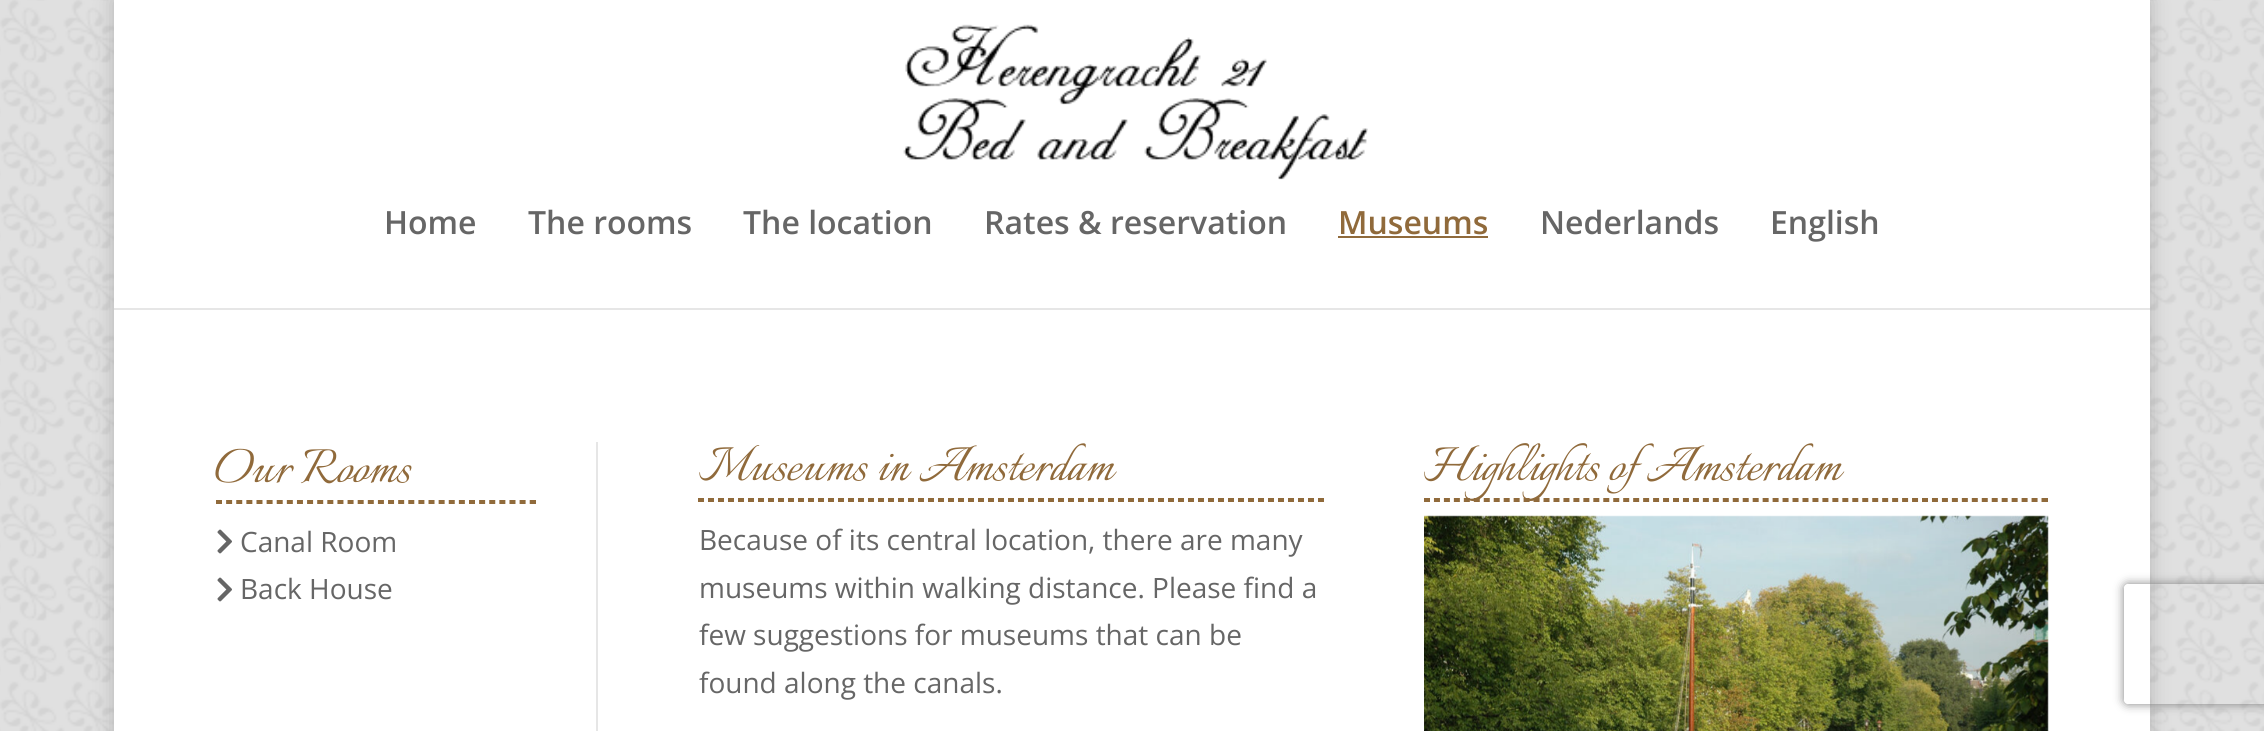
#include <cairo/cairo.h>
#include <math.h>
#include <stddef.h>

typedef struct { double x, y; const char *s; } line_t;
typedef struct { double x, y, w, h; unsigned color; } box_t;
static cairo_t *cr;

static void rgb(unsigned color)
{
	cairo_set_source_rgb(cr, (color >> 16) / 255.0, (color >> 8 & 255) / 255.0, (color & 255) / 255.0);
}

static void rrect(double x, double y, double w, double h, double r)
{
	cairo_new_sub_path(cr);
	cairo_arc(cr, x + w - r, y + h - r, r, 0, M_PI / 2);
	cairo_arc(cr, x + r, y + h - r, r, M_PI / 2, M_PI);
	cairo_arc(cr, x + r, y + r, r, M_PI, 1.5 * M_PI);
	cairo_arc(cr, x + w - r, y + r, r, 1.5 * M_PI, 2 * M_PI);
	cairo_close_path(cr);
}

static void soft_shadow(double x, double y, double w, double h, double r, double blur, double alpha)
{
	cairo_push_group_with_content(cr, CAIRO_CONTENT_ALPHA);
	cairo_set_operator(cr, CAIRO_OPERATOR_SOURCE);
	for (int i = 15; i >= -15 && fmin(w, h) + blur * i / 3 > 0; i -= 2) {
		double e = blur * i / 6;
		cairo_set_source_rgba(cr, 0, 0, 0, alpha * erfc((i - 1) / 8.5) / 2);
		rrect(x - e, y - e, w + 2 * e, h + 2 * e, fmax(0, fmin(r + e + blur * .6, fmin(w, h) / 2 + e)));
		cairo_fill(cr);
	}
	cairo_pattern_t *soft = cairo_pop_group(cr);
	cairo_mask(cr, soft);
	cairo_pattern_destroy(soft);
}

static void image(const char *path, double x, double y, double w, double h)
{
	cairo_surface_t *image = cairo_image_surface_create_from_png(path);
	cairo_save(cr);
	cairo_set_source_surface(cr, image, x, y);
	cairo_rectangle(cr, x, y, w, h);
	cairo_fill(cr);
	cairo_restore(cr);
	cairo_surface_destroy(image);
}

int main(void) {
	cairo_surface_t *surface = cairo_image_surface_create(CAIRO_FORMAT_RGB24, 2264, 731);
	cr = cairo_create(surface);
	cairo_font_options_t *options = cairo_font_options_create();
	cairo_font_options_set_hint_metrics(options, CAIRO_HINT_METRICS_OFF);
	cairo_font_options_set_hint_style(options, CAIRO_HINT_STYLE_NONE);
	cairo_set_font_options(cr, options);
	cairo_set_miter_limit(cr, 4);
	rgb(0xffffff);
	cairo_paint(cr);
	image("img/1.png", 0, 0, 2264, 731);
	rgb(0x000000);
	soft_shadow(114, 0, 2036, 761, 0, 10, 0.2);
	rgb(0xe6e6e6);
	cairo_rectangle(cr, 114, 308, 2036, 2);
	cairo_fill(cr);
	rgb(0xffffff);
	cairo_rectangle(cr, 114, 0, 2036, 308);
	cairo_fill(cr);
	image("img/2.png", 903, 24, 465, 156);
	{
		static const box_t items[] = {
			{1338, 236, 150, 2, 0x906a3b},
			{114, 310, 2036, 421, 0xffffff},
			{596, 442, 2, 289, 0xe6e6e6},
		};
		for (size_t i = 0; i < sizeof items / sizeof *items; i++) {
			rgb(items[i].color);
			cairo_rectangle(cr, items[i].x, items[i].y, items[i].w, items[i].h);
			cairo_fill(cr);
		}
	}
	cairo_new_path(cr);
	cairo_move_to(cr, 216, 501);
	cairo_line_to(cr, 536, 501);
	rgb(0x906a3b);
	cairo_set_dash(cr, (double[]){6, 4.12}, 2, 0);
	cairo_stroke(cr);
	cairo_rectangle(cr, 534, 500, 2, 4);
	cairo_fill(cr);
	cairo_new_path(cr);
	cairo_move_to(cr, 216, 503);
	cairo_line_to(cr, 536, 503);
	cairo_stroke(cr);
	image("img/3.png", 217, 529, 15, 25);
	image("img/3.png", 217, 577, 15, 25);
	cairo_new_path(cr);
	cairo_move_to(cr, 698, 499);
	cairo_line_to(cr, 1324, 499);
	cairo_set_dash(cr, (double[]){6, 4}, 2, 0);
	cairo_stroke(cr);
	cairo_rectangle(cr, 1322, 498, 2, 4);
	cairo_fill(cr);
	cairo_new_path(cr);
	cairo_move_to(cr, 698, 501);
	cairo_line_to(cr, 1324, 501);
	cairo_stroke(cr);
	cairo_new_path(cr);
	cairo_move_to(cr, 1424, 499);
	cairo_line_to(cr, 2048, 499);
	cairo_set_dash(cr, (double[]){6, 3.96}, 2, 0);
	cairo_stroke(cr);
	cairo_rectangle(cr, 2046, 498, 2, 4);
	cairo_fill(cr);
	cairo_new_path(cr);
	cairo_move_to(cr, 1424, 501);
	cairo_line_to(cr, 2048, 501);
	cairo_stroke(cr);
	image("img/4.png", 1424, 515, 625, 216);
	cairo_save(cr);
	cairo_set_fill_rule(cr, CAIRO_FILL_RULE_EVEN_ODD);
	cairo_new_path(cr);
	cairo_move_to(cr, 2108, 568);
	cairo_line_to(cr, 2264, 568);
	cairo_line_to(cr, 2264, 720);
	cairo_line_to(cr, 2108, 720);
	cairo_close_path(cr);
	cairo_move_to(cr, 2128, 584);
	cairo_line_to(cr, 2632, 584);
	cairo_curve_to(cr, 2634, 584, 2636, 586, 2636, 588);
	cairo_line_to(cr, 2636, 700);
	cairo_curve_to(cr, 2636, 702, 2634, 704, 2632, 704);
	cairo_line_to(cr, 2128, 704);
	cairo_curve_to(cr, 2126, 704, 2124, 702, 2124, 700);
	cairo_line_to(cr, 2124, 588);
	cairo_curve_to(cr, 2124, 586, 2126, 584, 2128, 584);
	cairo_close_path(cr);
	cairo_clip(cr);
	rgb(0x808080);
	soft_shadow(2124, 584, 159, 120, 4, 5, 1);
	cairo_restore(cr);
	cairo_select_font_face(cr, "Open Sans SemiBold", CAIRO_FONT_SLANT_NORMAL, CAIRO_FONT_WEIGHT_NORMAL);
	cairo_set_font_size(cr, 32);
	rgb(0x666666);
	{
		static const line_t items[] = {
			{384, 234, "Home"},
			{528, 234, "The rooms"},
			{743, 234, "The location"},
			{984, 234, "Rates & reservation"},
		};
		for (size_t i = 0; i < sizeof items / sizeof *items; i++) {
			cairo_move_to(cr, items[i].x, items[i].y);
			cairo_show_text(cr, items[i].s);
		}
	}
	rgb(0x906a3b);
	cairo_move_to(cr, 1338, 234);
	cairo_show_text(cr, "Museums");
	rgb(0x666666);
	cairo_move_to(cr, 1540, 234);
	cairo_show_text(cr, "Nederlands");
	cairo_move_to(cr, 1770, 234);
	cairo_show_text(cr, "English");
	cairo_select_font_face(cr, "Italianno", CAIRO_FONT_SLANT_NORMAL, CAIRO_FONT_WEIGHT_NORMAL);
	cairo_set_font_size(cr, 60);
	rgb(0x906a3b);
	cairo_move_to(cr, 215, 482);
	cairo_show_text(cr, "Our Rooms");
	cairo_select_font_face(cr, "Open Sans", CAIRO_FONT_SLANT_NORMAL, CAIRO_FONT_WEIGHT_NORMAL);
	cairo_set_font_size(cr, 28);
	rgb(0x666666);
	cairo_move_to(cr, 240, 552);
	cairo_show_text(cr, "Canal Room");
	cairo_move_to(cr, 240, 599);
	cairo_show_text(cr, "Back House");
	cairo_select_font_face(cr, "Italianno", CAIRO_FONT_SLANT_NORMAL, CAIRO_FONT_WEIGHT_NORMAL);
	cairo_set_font_size(cr, 60);
	rgb(0x906a3b);
	cairo_move_to(cr, 699, 480);
	cairo_show_text(cr, "Museums in Amsterdam");
	cairo_select_font_face(cr, "Open Sans", CAIRO_FONT_SLANT_NORMAL, CAIRO_FONT_WEIGHT_NORMAL);
	cairo_set_font_size(cr, 28);
	rgb(0x666666);
	{
		static const line_t items[] = {
			{699, 550, "Because of its central location, there are many"},
			{699, 598, "museums within walking distance. Please find a"},
			{699, 645, "few suggestions for museums that can be"},
			{699, 693, "found along the canals."},
		};
		for (size_t i = 0; i < sizeof items / sizeof *items; i++) {
			cairo_move_to(cr, items[i].x, items[i].y);
			cairo_show_text(cr, items[i].s);
		}
	}
	cairo_select_font_face(cr, "Italianno", CAIRO_FONT_SLANT_NORMAL, CAIRO_FONT_WEIGHT_NORMAL);
	cairo_set_font_size(cr, 60);
	rgb(0x906a3b);
	cairo_move_to(cr, 1424, 480);
	cairo_show_text(cr, "Highlights of Amsterdam");
	cairo_surface_write_to_png(surface, "page.png");
	cairo_font_options_destroy(options);
	cairo_destroy(cr);
	cairo_surface_destroy(surface);
	return 0;
}
